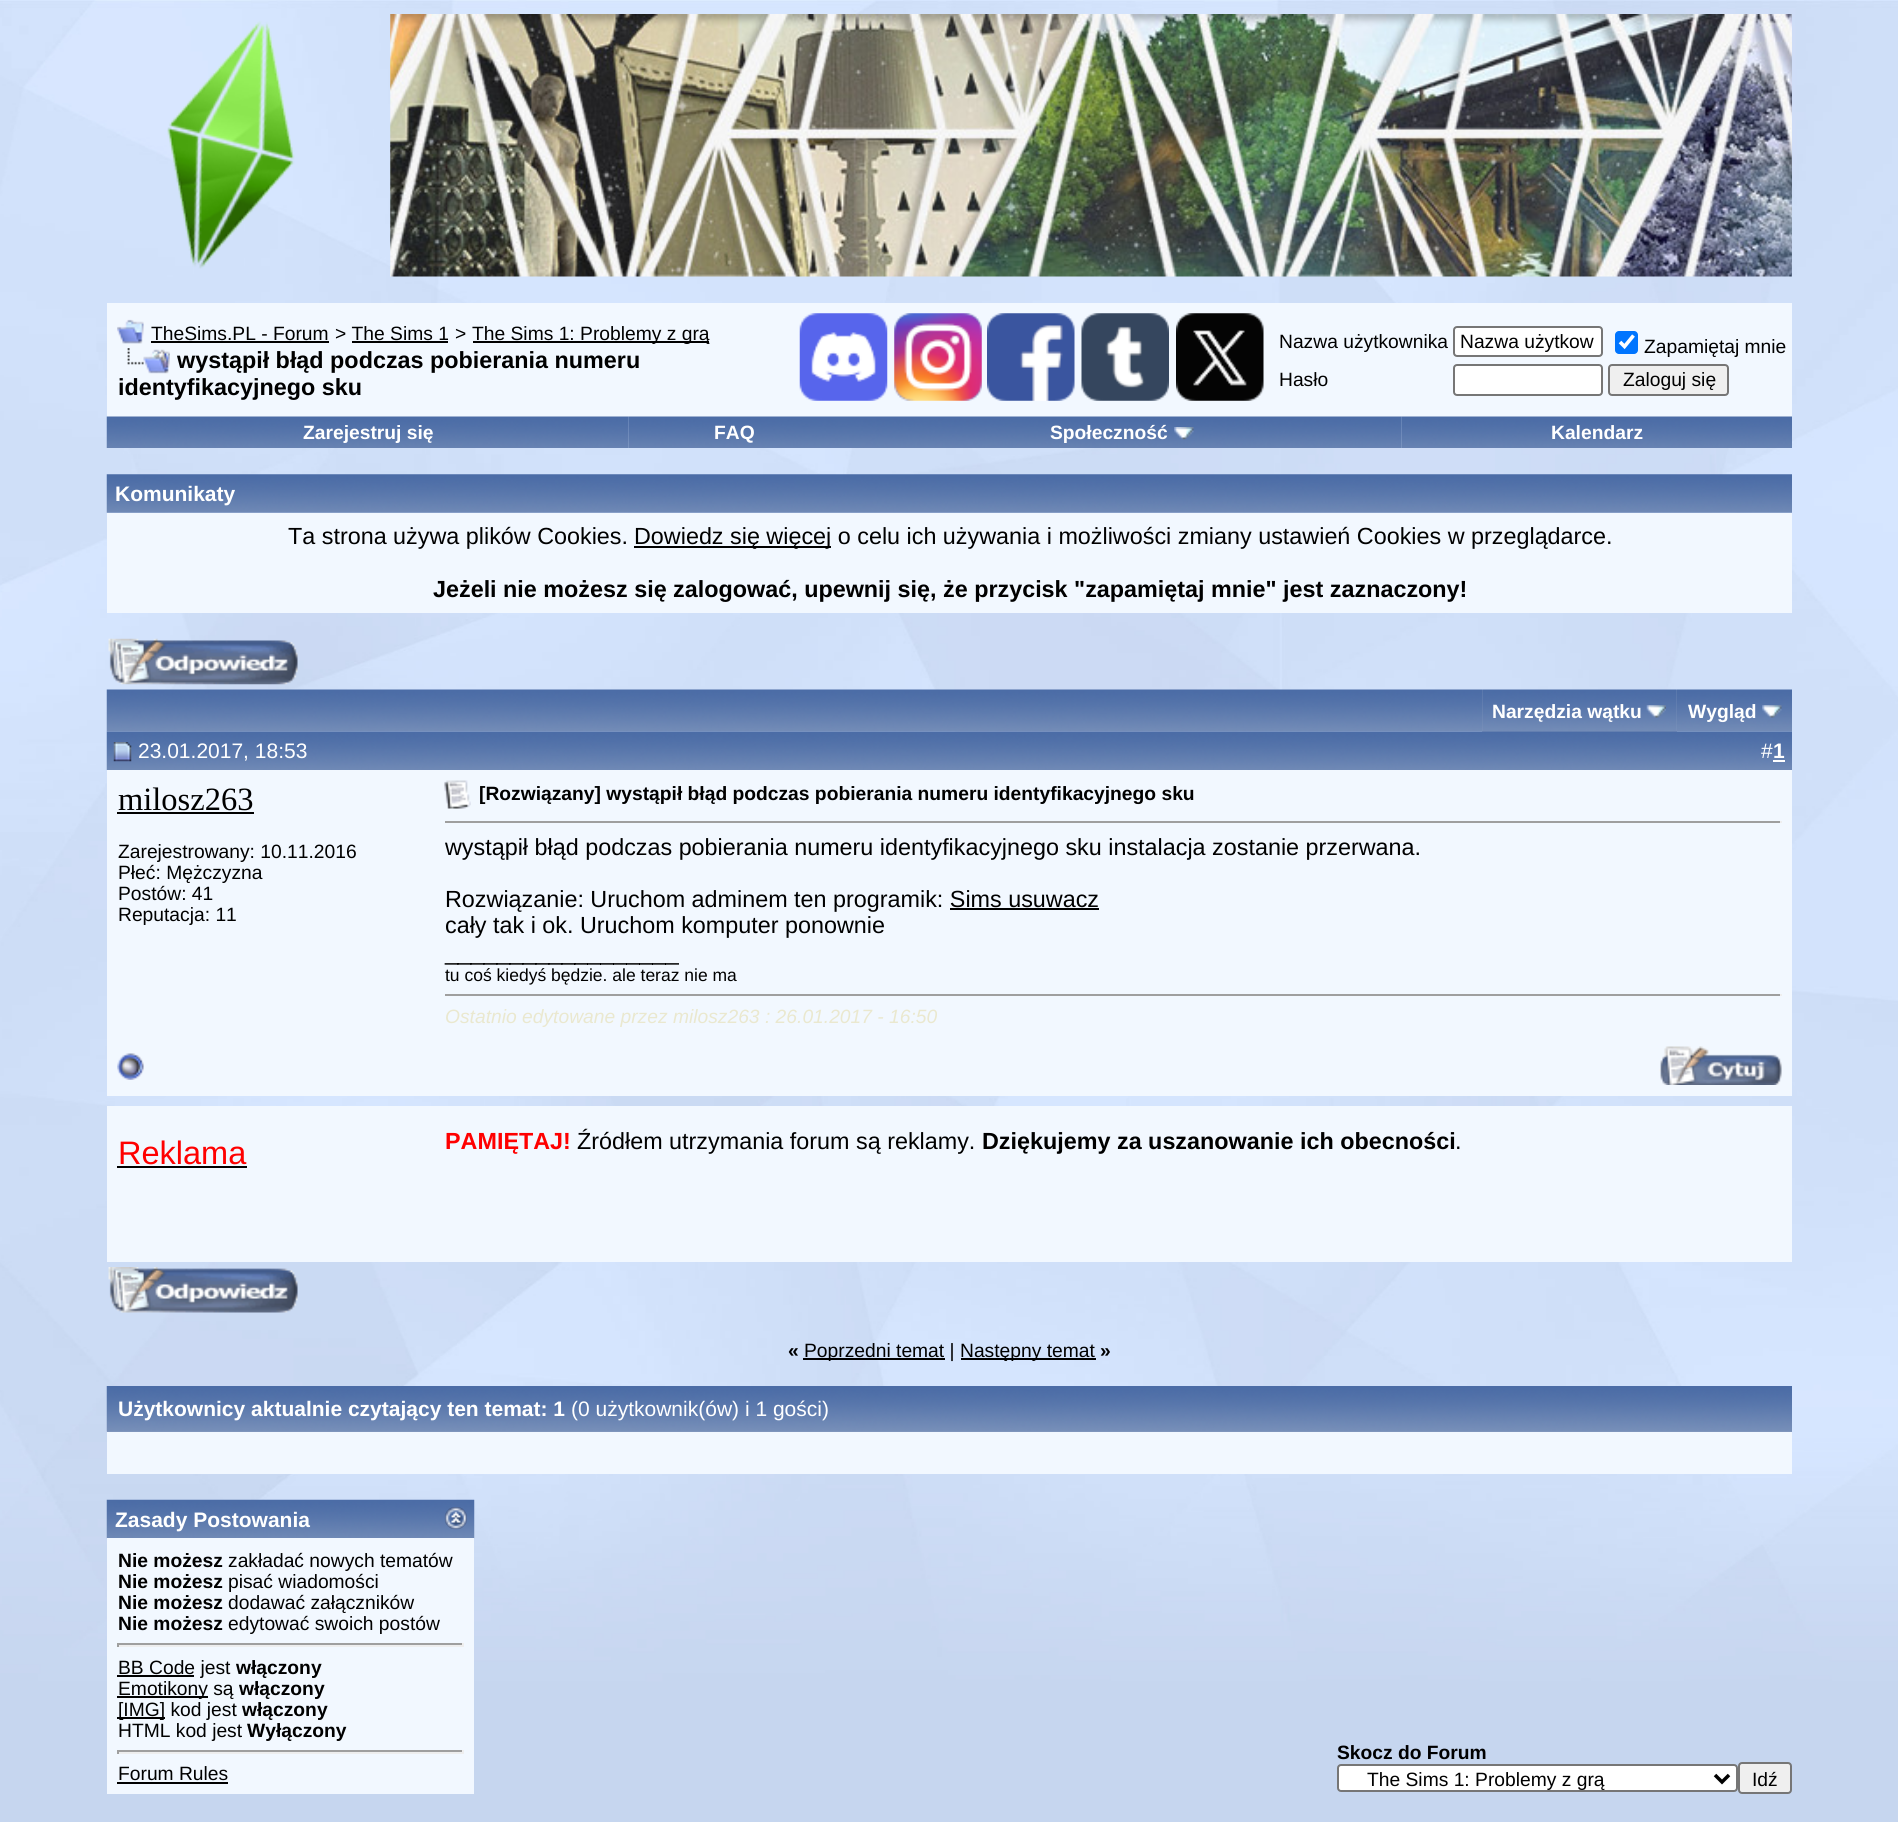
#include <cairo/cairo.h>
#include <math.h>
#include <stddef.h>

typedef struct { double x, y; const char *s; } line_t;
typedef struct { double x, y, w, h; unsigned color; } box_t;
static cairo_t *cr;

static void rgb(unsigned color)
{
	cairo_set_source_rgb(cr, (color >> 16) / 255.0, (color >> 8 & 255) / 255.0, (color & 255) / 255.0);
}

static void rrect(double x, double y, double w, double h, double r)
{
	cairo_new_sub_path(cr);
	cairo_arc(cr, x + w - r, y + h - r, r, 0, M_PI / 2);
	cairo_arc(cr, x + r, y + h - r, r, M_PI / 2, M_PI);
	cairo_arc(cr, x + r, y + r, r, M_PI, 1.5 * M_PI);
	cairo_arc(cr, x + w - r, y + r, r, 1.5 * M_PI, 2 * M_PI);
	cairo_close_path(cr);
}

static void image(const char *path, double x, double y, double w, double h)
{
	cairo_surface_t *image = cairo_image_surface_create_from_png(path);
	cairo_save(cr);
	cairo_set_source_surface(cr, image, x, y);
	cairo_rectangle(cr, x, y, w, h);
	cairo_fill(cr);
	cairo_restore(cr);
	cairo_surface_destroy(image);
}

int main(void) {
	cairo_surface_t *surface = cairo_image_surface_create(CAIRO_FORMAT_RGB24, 1898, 1822);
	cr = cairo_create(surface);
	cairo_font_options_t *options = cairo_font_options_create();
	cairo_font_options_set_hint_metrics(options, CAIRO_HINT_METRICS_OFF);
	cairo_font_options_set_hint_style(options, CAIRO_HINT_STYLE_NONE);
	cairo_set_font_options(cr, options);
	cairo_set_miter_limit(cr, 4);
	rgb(0xffffff);
	cairo_paint(cr);
	image("img/1.png", 0, 0, 1898, 1822);
	image("img/2.png", 167, 21, 128, 248);
	image("img/3.png", 390, 14, 1402, 263);
	rgb(0xf2f8ff);
	cairo_rectangle(cr, 107, 303, 1685, 114);
	cairo_fill(cr);
	image("img/4.png", 117, 319, 27, 25);
	{
		static const box_t items[] = {
			{151, 341, 178, 2, 0x000000},
			{352, 341, 96, 2, 0x000000},
			{473, 341, 236, 2, 0x000000},
		};
		for (size_t i = 0; i < sizeof items / sizeof *items; i++) {
			rgb(items[i].color);
			cairo_rectangle(cr, items[i].x, items[i].y, items[i].w, items[i].h);
			cairo_fill(cr);
		}
	}
	image("img/5.png", 127, 348, 43, 26);
	image("img/6.png", 799, 313, 89, 88);
	image("img/7.png", 894, 313, 88, 88);
	image("img/8.png", 987, 313, 88, 88);
	image("img/9.png", 1081, 313, 88, 88);
	image("img/10.png", 1176, 313, 88, 88);
	rgb(0xffffff);
	rrect(1454, 327, 148, 29, 3);
	cairo_fill_preserve(cr);
	rgb(0x767676);
	cairo_stroke(cr);
	rgb(0x0075ff);
	rrect(1615, 331, 23, 23, 4);
	cairo_fill(cr);
	cairo_new_path(cr);
	cairo_move_to(cr, 1620, 342);
	cairo_line_to(cr, 1624.5, 346.5);
	cairo_line_to(cr, 1633.5, 335.5);
	rgb(0xffffff);
	cairo_set_line_width(cr, 3.6);
	cairo_stroke(cr);
	rrect(1454, 365, 148, 30, 3);
	cairo_fill_preserve(cr);
	rgb(0x767676);
	cairo_set_line_width(cr, 2);
	cairo_stroke(cr);
	rgb(0xefefef);
	rrect(1609, 365, 119, 30, 3);
	cairo_fill_preserve(cr);
	rgb(0x767676);
	cairo_stroke(cr);
	image("img/11.png", 106, 416, 523, 32);
	image("img/12.png", 628, 416, 212, 32);
	image("img/13.png", 840, 416, 562, 32);
	image("img/14.png", 1174, 427, 20, 13);
	image("img/15.png", 1401, 416, 391, 32);
	image("img/16.png", 106, 474, 1686, 39);
	rgb(0xf2f8ff);
	cairo_rectangle(cr, 107, 513, 1685, 100);
	cairo_fill(cr);
	rgb(0x000000);
	cairo_rectangle(cr, 634, 546, 197, 2);
	cairo_fill(cr);
	image("img/17.png", 108, 638, 190, 47);
	image("img/18.png", 106, 689, 1377, 43);
	rgb(0x869bbf);
	cairo_rectangle(cr, 1482, 690, 195, 42);
	cairo_fill(cr);
	image("img/19.png", 1482, 689, 195, 43);
	image("img/20.png", 1646, 705, 20, 13);
	image("img/21.png", 1676, 689, 116, 43);
	image("img/22.png", 1762, 705, 20, 13);
	image("img/23.png", 106, 731, 328, 39);
	image("img/24.png", 113, 742, 19, 20);
	image("img/25.png", 434, 731, 1358, 39);
	{
		static const box_t items[] = {
			{1773, 760, 12, 2, 0xffffff},
			{107, 770, 1685, 266, 0xf2f8ff},
			{117, 812, 137, 2, 0x000000},
		};
		for (size_t i = 0; i < sizeof items / sizeof *items; i++) {
			rgb(items[i].color);
			cairo_rectangle(cr, items[i].x, items[i].y, items[i].w, items[i].h);
			cairo_fill(cr);
		}
	}
	image("img/26.png", 444, 780, 27, 29);
	{
		static const box_t items[] = {
			{445, 821, 1337, 2, 0x9f9f9f},
			{1780, 821, 2, 2, 0xeeeeee},
			{950, 908, 149, 2, 0x000000},
			{445, 994, 1337, 2, 0x9f9f9f},
			{1780, 994, 2, 2, 0xeeeeee},
			{107, 1036, 1685, 60, 0xf2f8ff},
		};
		for (size_t i = 0; i < sizeof items / sizeof *items; i++) {
			rgb(items[i].color);
			cairo_rectangle(cr, items[i].x, items[i].y, items[i].w, items[i].h);
			cairo_fill(cr);
		}
	}
	image("img/27.png", 117, 1053, 27, 27);
	image("img/28.png", 1659, 1046, 123, 39);
	cairo_rectangle(cr, 107, 1106, 1685, 156);
	cairo_fill(cr);
	rgb(0x000000);
	cairo_rectangle(cr, 117, 1166, 130, 2);
	cairo_fill(cr);
	image("img/29.png", 108, 1267, 190, 46);
	{
		static const box_t items[] = {
			{803, 1358, 142, 2, 0x000000},
			{961, 1358, 135, 2, 0x000000},
			{107, 1431, 1685, 1, 0x869bbf},
		};
		for (size_t i = 0; i < sizeof items / sizeof *items; i++) {
			rgb(items[i].color);
			cairo_rectangle(cr, items[i].x, items[i].y, items[i].w, items[i].h);
			cairo_fill(cr);
		}
	}
	image("img/30.png", 106, 1386, 1686, 46);
	rgb(0xf2f8ff);
	cairo_rectangle(cr, 107, 1432, 1685, 42);
	cairo_fill(cr);
	image("img/31.png", 106, 1499, 369, 40);
	image("img/32.png", 444, 1507, 23, 23);
	{
		static const box_t items[] = {
			{107, 1538, 367, 256, 0xf2f8ff},
			{117, 1643, 347, 2, 0x9f9f9f},
			{462, 1643, 2, 4, 0xeeeeee},
			{117, 1645, 347, 2, 0xeeeeee},
			{117, 1643, 2, 4, 0x9f9f9f},
			{117, 1675, 77, 2, 0x000000},
			{117, 1696, 91, 2, 0x000000},
			{117, 1717, 48, 2, 0x000000},
			{117, 1750, 347, 2, 0x9f9f9f},
			{462, 1750, 2, 4, 0xeeeeee},
			{117, 1752, 347, 2, 0xeeeeee},
			{117, 1750, 2, 4, 0x9f9f9f},
			{117, 1782, 111, 2, 0x000000},
		};
		for (size_t i = 0; i < sizeof items / sizeof *items; i++) {
			rgb(items[i].color);
			cairo_rectangle(cr, items[i].x, items[i].y, items[i].w, items[i].h);
			cairo_fill(cr);
		}
	}
	rgb(0xffffff);
	rrect(1338, 1765, 399, 26, 3);
	cairo_fill_preserve(cr);
	rgb(0x767676);
	cairo_stroke(cr);
	cairo_new_path(cr);
	cairo_move_to(cr, 1715, 1775);
	cairo_line_to(cr, 1722, 1782);
	cairo_line_to(cr, 1729, 1775);
	rgb(0x000000);
	cairo_set_line_width(cr, 3.5);
	cairo_stroke(cr);
	rgb(0xefefef);
	rrect(1739, 1763, 52, 30, 3);
	cairo_fill_preserve(cr);
	rgb(0x767676);
	cairo_set_line_width(cr, 2);
	cairo_stroke(cr);
	cairo_select_font_face(cr, "Liberation Sans", CAIRO_FONT_SLANT_NORMAL, CAIRO_FONT_WEIGHT_NORMAL);
	cairo_set_font_size(cr, 19.25);
	rgb(0x000000);
	{
		static const line_t items[] = {
			{151, 340, "TheSims.PL - Forum"},
			{335, 340, "> The Sims 1"},
			{455, 340, ">"},
			{472, 340, "The Sims 1: Problemy z grą"},
		};
		for (size_t i = 0; i < sizeof items / sizeof *items; i++) {
			cairo_move_to(cr, items[i].x, items[i].y);
			cairo_show_text(cr, items[i].s);
		}
	}
	cairo_select_font_face(cr, "Liberation Sans", CAIRO_FONT_SLANT_NORMAL, CAIRO_FONT_WEIGHT_BOLD);
	cairo_set_font_size(cr, 23.35);
	cairo_move_to(cr, 177, 368);
	cairo_show_text(cr, "wystąpił błąd podczas pobierania numeru");
	cairo_move_to(cr, 118, 395);
	cairo_show_text(cr, "identyfikacyjnego sku");
	cairo_select_font_face(cr, "Liberation Sans", CAIRO_FONT_SLANT_NORMAL, CAIRO_FONT_WEIGHT_NORMAL);
	cairo_set_font_size(cr, 19.25);
	{
		static const line_t items[] = {
			{1279, 348, "Nazwa użytkownika"},
			{1460, 348, "Nazwa użytkow"},
			{1644, 353, "Zapamiętaj mnie"},
			{1279, 386, "Hasło"},
			{1623, 386, "Zaloguj się"},
		};
		for (size_t i = 0; i < sizeof items / sizeof *items; i++) {
			cairo_move_to(cr, items[i].x, items[i].y);
			cairo_show_text(cr, items[i].s);
		}
	}
	cairo_select_font_face(cr, "Liberation Sans", CAIRO_FONT_SLANT_NORMAL, CAIRO_FONT_WEIGHT_BOLD);
	rgb(0xffffff);
	{
		static const line_t items[] = {
			{303, 439, "Zarejestruj się"},
			{714, 439, "FAQ"},
			{1050, 439, "Społeczność"},
			{1551, 439, "Kalendarz"},
		};
		for (size_t i = 0; i < sizeof items / sizeof *items; i++) {
			cairo_move_to(cr, items[i].x, items[i].y);
			cairo_show_text(cr, items[i].s);
		}
	}
	cairo_set_font_size(cr, 21);
	cairo_move_to(cr, 115, 501);
	cairo_show_text(cr, "Komunikaty");
	cairo_select_font_face(cr, "Liberation Sans", CAIRO_FONT_SLANT_NORMAL, CAIRO_FONT_WEIGHT_NORMAL);
	cairo_set_font_size(cr, 23.35);
	rgb(0x000000);
	cairo_move_to(cr, 288, 544);
	cairo_show_text(cr, "Ta strona używa plików Cookies.");
	cairo_move_to(cr, 634, 544);
	cairo_show_text(cr, "Dowiedz się więcej o celu ich używania i możliwości zmiany ustawień Cookies w przeglądarce.");
	cairo_select_font_face(cr, "Liberation Sans", CAIRO_FONT_SLANT_NORMAL, CAIRO_FONT_WEIGHT_BOLD);
	cairo_move_to(cr, 433, 597);
	cairo_show_text(cr, "Jeżeli nie możesz się zalogować, upewnij się, że przycisk \"zapamiętaj mnie\" jest zaznaczony!");
	cairo_set_font_size(cr, 19.25);
	rgb(0xffffff);
	cairo_move_to(cr, 1492, 718);
	cairo_show_text(cr, "Narzędzia wątku");
	cairo_move_to(cr, 1688, 718);
	cairo_show_text(cr, "Wygląd");
	cairo_select_font_face(cr, "Liberation Sans", CAIRO_FONT_SLANT_NORMAL, CAIRO_FONT_WEIGHT_NORMAL);
	cairo_set_font_size(cr, 21);
	cairo_move_to(cr, 138, 758);
	cairo_show_text(cr, "23.01.2017, 18:53");
	cairo_move_to(cr, 1761, 758);
	cairo_show_text(cr, "#");
	cairo_select_font_face(cr, "Liberation Sans", CAIRO_FONT_SLANT_NORMAL, CAIRO_FONT_WEIGHT_BOLD);
	cairo_move_to(cr, 1773, 758);
	cairo_show_text(cr, "1");
	cairo_select_font_face(cr, "Liberation Serif", CAIRO_FONT_SLANT_NORMAL, CAIRO_FONT_WEIGHT_NORMAL);
	cairo_set_font_size(cr, 32.5);
	rgb(0x000000);
	cairo_move_to(cr, 118, 810);
	cairo_show_text(cr, "milosz263");
	cairo_select_font_face(cr, "Liberation Sans", CAIRO_FONT_SLANT_NORMAL, CAIRO_FONT_WEIGHT_NORMAL);
	cairo_set_font_size(cr, 19.25);
	{
		static const line_t items[] = {
			{118, 858, "Zarejestrowany: 10.11.2016"},
			{118, 879, "Płeć: Mężczyzna"},
			{118, 900, "Postów: 41"},
			{118, 921, "Reputacja: 11"},
		};
		for (size_t i = 0; i < sizeof items / sizeof *items; i++) {
			cairo_move_to(cr, items[i].x, items[i].y);
			cairo_show_text(cr, items[i].s);
		}
	}
	cairo_select_font_face(cr, "Liberation Sans", CAIRO_FONT_SLANT_NORMAL, CAIRO_FONT_WEIGHT_BOLD);
	cairo_move_to(cr, 479, 800);
	cairo_show_text(cr, "[Rozwiązany] wystąpił błąd podczas pobierania numeru identyfikacyjnego sku");
	cairo_select_font_face(cr, "Liberation Sans", CAIRO_FONT_SLANT_NORMAL, CAIRO_FONT_WEIGHT_NORMAL);
	cairo_set_font_size(cr, 23.35);
	{
		static const line_t items[] = {
			{445, 855, "wystąpił błąd podczas pobierania numeru identyfikacyjnego sku instalacja zostanie przerwana."},
			{445, 907, "Rozwiązanie: Uruchom adminem ten programik: Sims usuwacz"},
			{445, 933, "cały tak i ok. Uruchom komputer ponownie"},
			{445, 960, "__________________"},
		};
		for (size_t i = 0; i < sizeof items / sizeof *items; i++) {
			cairo_move_to(cr, items[i].x, items[i].y);
			cairo_show_text(cr, items[i].s);
		}
	}
	cairo_set_font_size(cr, 17.5);
	cairo_move_to(cr, 445, 981);
	cairo_show_text(cr, "tu coś kiedyś będzie. ale teraz nie ma");
	cairo_select_font_face(cr, "Liberation Sans", CAIRO_FONT_SLANT_ITALIC, CAIRO_FONT_WEIGHT_NORMAL);
	cairo_set_font_size(cr, 19.25);
	rgb(0xeae8cf);
	cairo_move_to(cr, 445, 1023);
	cairo_show_text(cr, "Ostatnio edytowane przez milosz263 : 26.01.2017 - 16:50");
	cairo_select_font_face(cr, "Liberation Sans", CAIRO_FONT_SLANT_NORMAL, CAIRO_FONT_WEIGHT_NORMAL);
	cairo_set_font_size(cr, 32.5);
	rgb(0xff0000);
	cairo_move_to(cr, 118, 1164);
	cairo_show_text(cr, "Reklama");
	cairo_select_font_face(cr, "Liberation Sans", CAIRO_FONT_SLANT_NORMAL, CAIRO_FONT_WEIGHT_BOLD);
	cairo_set_font_size(cr, 23.35);
	cairo_move_to(cr, 445, 1149);
	cairo_show_text(cr, "PAMIĘTAJ!");
	cairo_select_font_face(cr, "Liberation Sans", CAIRO_FONT_SLANT_NORMAL, CAIRO_FONT_WEIGHT_NORMAL);
	rgb(0x000000);
	cairo_move_to(cr, 577, 1149);
	cairo_show_text(cr, "Źródłem utrzymania forum są reklamy.");
	cairo_select_font_face(cr, "Liberation Sans", CAIRO_FONT_SLANT_NORMAL, CAIRO_FONT_WEIGHT_BOLD);
	cairo_move_to(cr, 982, 1149);
	cairo_show_text(cr, "Dziękujemy za uszanowanie ich obecności");
	cairo_select_font_face(cr, "Liberation Sans", CAIRO_FONT_SLANT_NORMAL, CAIRO_FONT_WEIGHT_NORMAL);
	cairo_move_to(cr, 1455, 1149);
	cairo_show_text(cr, ".");
	cairo_select_font_face(cr, "Liberation Sans", CAIRO_FONT_SLANT_NORMAL, CAIRO_FONT_WEIGHT_BOLD);
	cairo_set_font_size(cr, 19.25);
	cairo_move_to(cr, 788, 1357);
	cairo_show_text(cr, "«");
	cairo_select_font_face(cr, "Liberation Sans", CAIRO_FONT_SLANT_NORMAL, CAIRO_FONT_WEIGHT_NORMAL);
	cairo_move_to(cr, 804, 1357);
	cairo_show_text(cr, "Poprzedni temat |");
	cairo_move_to(cr, 960, 1357);
	cairo_show_text(cr, "Następny temat");
	cairo_select_font_face(cr, "Liberation Sans", CAIRO_FONT_SLANT_NORMAL, CAIRO_FONT_WEIGHT_BOLD);
	cairo_move_to(cr, 1100, 1357);
	cairo_show_text(cr, "»");
	cairo_set_font_size(cr, 21);
	rgb(0xffffff);
	cairo_move_to(cr, 118, 1416);
	cairo_show_text(cr, "Użytkownicy aktualnie czytający ten temat: 1");
	cairo_select_font_face(cr, "Liberation Sans", CAIRO_FONT_SLANT_NORMAL, CAIRO_FONT_WEIGHT_NORMAL);
	cairo_move_to(cr, 571, 1416);
	cairo_show_text(cr, "(0 użytkownik(ów) i 1 gości)");
	cairo_select_font_face(cr, "Liberation Sans", CAIRO_FONT_SLANT_NORMAL, CAIRO_FONT_WEIGHT_BOLD);
	cairo_move_to(cr, 115, 1527);
	cairo_show_text(cr, "Zasady Postowania");
	cairo_set_font_size(cr, 19.25);
	rgb(0x000000);
	cairo_move_to(cr, 118, 1567);
	cairo_show_text(cr, "Nie możesz");
	cairo_select_font_face(cr, "Liberation Sans", CAIRO_FONT_SLANT_NORMAL, CAIRO_FONT_WEIGHT_NORMAL);
	cairo_move_to(cr, 228, 1567);
	cairo_show_text(cr, "zakładać nowych tematów");
	cairo_select_font_face(cr, "Liberation Sans", CAIRO_FONT_SLANT_NORMAL, CAIRO_FONT_WEIGHT_BOLD);
	cairo_move_to(cr, 118, 1588);
	cairo_show_text(cr, "Nie możesz");
	cairo_select_font_face(cr, "Liberation Sans", CAIRO_FONT_SLANT_NORMAL, CAIRO_FONT_WEIGHT_NORMAL);
	cairo_move_to(cr, 228, 1588);
	cairo_show_text(cr, "pisać wiadomości");
	cairo_select_font_face(cr, "Liberation Sans", CAIRO_FONT_SLANT_NORMAL, CAIRO_FONT_WEIGHT_BOLD);
	cairo_move_to(cr, 118, 1609);
	cairo_show_text(cr, "Nie możesz");
	cairo_select_font_face(cr, "Liberation Sans", CAIRO_FONT_SLANT_NORMAL, CAIRO_FONT_WEIGHT_NORMAL);
	cairo_move_to(cr, 228, 1609);
	cairo_show_text(cr, "dodawać załączników");
	cairo_select_font_face(cr, "Liberation Sans", CAIRO_FONT_SLANT_NORMAL, CAIRO_FONT_WEIGHT_BOLD);
	cairo_move_to(cr, 118, 1630);
	cairo_show_text(cr, "Nie możesz");
	cairo_select_font_face(cr, "Liberation Sans", CAIRO_FONT_SLANT_NORMAL, CAIRO_FONT_WEIGHT_NORMAL);
	cairo_move_to(cr, 228, 1630);
	cairo_show_text(cr, "edytować swoich postów");
	cairo_move_to(cr, 118, 1674);
	cairo_show_text(cr, "BB Code jest");
	cairo_select_font_face(cr, "Liberation Sans", CAIRO_FONT_SLANT_NORMAL, CAIRO_FONT_WEIGHT_BOLD);
	cairo_move_to(cr, 236, 1674);
	cairo_show_text(cr, "włączony");
	cairo_select_font_face(cr, "Liberation Sans", CAIRO_FONT_SLANT_NORMAL, CAIRO_FONT_WEIGHT_NORMAL);
	cairo_move_to(cr, 118, 1695);
	cairo_show_text(cr, "Emotikony są");
	cairo_select_font_face(cr, "Liberation Sans", CAIRO_FONT_SLANT_NORMAL, CAIRO_FONT_WEIGHT_BOLD);
	cairo_move_to(cr, 239, 1695);
	cairo_show_text(cr, "włączony");
	cairo_select_font_face(cr, "Liberation Sans", CAIRO_FONT_SLANT_NORMAL, CAIRO_FONT_WEIGHT_NORMAL);
	cairo_move_to(cr, 118, 1716);
	cairo_show_text(cr, "[IMG] kod jest");
	cairo_select_font_face(cr, "Liberation Sans", CAIRO_FONT_SLANT_NORMAL, CAIRO_FONT_WEIGHT_BOLD);
	cairo_move_to(cr, 242, 1716);
	cairo_show_text(cr, "włączony");
	cairo_select_font_face(cr, "Liberation Sans", CAIRO_FONT_SLANT_NORMAL, CAIRO_FONT_WEIGHT_NORMAL);
	cairo_move_to(cr, 118, 1737);
	cairo_show_text(cr, "HTML kod jest");
	cairo_select_font_face(cr, "Liberation Sans", CAIRO_FONT_SLANT_NORMAL, CAIRO_FONT_WEIGHT_BOLD);
	cairo_move_to(cr, 247, 1737);
	cairo_show_text(cr, "Wyłączony");
	cairo_select_font_face(cr, "Liberation Sans", CAIRO_FONT_SLANT_NORMAL, CAIRO_FONT_WEIGHT_NORMAL);
	cairo_move_to(cr, 118, 1780);
	cairo_show_text(cr, "Forum Rules");
	cairo_select_font_face(cr, "Liberation Sans", CAIRO_FONT_SLANT_NORMAL, CAIRO_FONT_WEIGHT_BOLD);
	cairo_move_to(cr, 1337, 1759);
	cairo_show_text(cr, "Skocz do Forum");
	cairo_select_font_face(cr, "Liberation Sans", CAIRO_FONT_SLANT_NORMAL, CAIRO_FONT_WEIGHT_NORMAL);
	cairo_move_to(cr, 1367, 1786);
	cairo_show_text(cr, "The Sims 1: Problemy z grą");
	cairo_move_to(cr, 1752, 1786);
	cairo_show_text(cr, "Idź");
	cairo_surface_write_to_png(surface, "page.png");
	cairo_font_options_destroy(options);
	cairo_destroy(cr);
	cairo_surface_destroy(surface);
	return 0;
}
